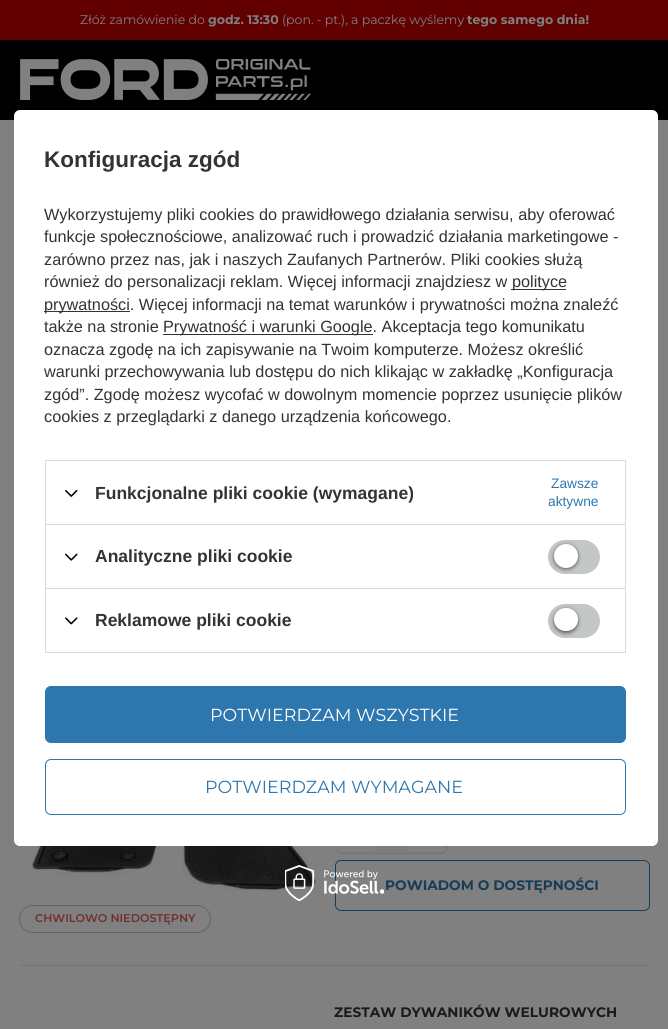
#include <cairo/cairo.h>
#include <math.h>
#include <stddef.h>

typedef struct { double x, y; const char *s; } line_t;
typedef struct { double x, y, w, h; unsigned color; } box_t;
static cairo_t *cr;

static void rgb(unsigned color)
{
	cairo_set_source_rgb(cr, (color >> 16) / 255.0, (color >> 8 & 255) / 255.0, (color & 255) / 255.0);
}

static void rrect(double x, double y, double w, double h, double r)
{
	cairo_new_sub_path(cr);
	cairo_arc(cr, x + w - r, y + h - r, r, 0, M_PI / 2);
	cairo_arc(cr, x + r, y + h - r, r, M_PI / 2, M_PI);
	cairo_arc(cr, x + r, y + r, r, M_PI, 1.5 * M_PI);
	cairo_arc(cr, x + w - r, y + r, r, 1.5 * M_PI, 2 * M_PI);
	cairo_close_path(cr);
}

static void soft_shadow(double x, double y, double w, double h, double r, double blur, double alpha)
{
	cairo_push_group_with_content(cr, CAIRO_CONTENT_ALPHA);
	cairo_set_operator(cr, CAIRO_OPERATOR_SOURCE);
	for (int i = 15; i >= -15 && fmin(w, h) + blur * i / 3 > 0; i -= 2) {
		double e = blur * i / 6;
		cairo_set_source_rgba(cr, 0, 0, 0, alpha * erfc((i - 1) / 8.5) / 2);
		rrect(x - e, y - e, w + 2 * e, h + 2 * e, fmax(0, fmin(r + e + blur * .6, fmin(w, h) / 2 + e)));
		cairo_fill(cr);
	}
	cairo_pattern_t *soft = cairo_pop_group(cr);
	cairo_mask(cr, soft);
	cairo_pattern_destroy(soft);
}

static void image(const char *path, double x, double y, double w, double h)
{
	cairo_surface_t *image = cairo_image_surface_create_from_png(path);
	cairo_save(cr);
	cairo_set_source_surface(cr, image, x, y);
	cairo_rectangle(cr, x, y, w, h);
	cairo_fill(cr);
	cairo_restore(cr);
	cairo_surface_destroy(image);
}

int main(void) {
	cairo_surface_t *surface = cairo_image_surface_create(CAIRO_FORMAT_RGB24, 668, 1029);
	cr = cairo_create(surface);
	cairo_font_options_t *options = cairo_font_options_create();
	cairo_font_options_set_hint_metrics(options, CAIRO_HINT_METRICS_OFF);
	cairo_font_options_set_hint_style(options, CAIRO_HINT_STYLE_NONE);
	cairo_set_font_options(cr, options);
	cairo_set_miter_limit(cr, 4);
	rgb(0x808080);
	cairo_paint(cr);
	rgb(0x000000);
	cairo_rectangle(cr, 0, 40, 668, 80);
	cairo_fill(cr);
	rgb(0x620000);
	cairo_rectangle(cr, 0, 0, 668, 40);
	cairo_fill(cr);
	image("img/1.png", 20, 59, 291, 41);
	rgb(0x747474);
	cairo_set_fill_rule(cr, CAIRO_FILL_RULE_EVEN_ODD);
	cairo_new_path(cr);
	cairo_move_to(cr, 341, 821);
	cairo_line_to(cr, 372.5, 821);
	cairo_line_to(cr, 372.5, 854);
	cairo_line_to(cr, 341, 854);
	cairo_curve_to(cr, 338, 854, 335, 851, 335, 847.5);
	cairo_line_to(cr, 335, 827.5);
	cairo_curve_to(cr, 335, 824, 338, 821, 341, 821);
	cairo_close_path(cr);
	cairo_move_to(cr, 341, 822.5);
	cairo_line_to(cr, 372.5, 822.5);
	cairo_line_to(cr, 372.5, 852.5);
	cairo_line_to(cr, 341, 852.5);
	cairo_curve_to(cr, 338.5, 852.5, 336, 850.5, 336, 847.5);
	cairo_line_to(cr, 336, 827.5);
	cairo_curve_to(cr, 336, 824.5, 338.5, 822.5, 341, 822.5);
	cairo_close_path(cr);
	cairo_fill(cr);
	rgb(0x7d7d7d);
	cairo_rectangle(cr, 373, 846, 37, 7);
	cairo_fill(cr);
	rgb(0x747474);
	cairo_rectangle(cr, 373, 853, 37, 1);
	cairo_fill(cr);
	cairo_new_path(cr);
	cairo_move_to(cr, 410, 821);
	cairo_line_to(cr, 441, 821);
	cairo_curve_to(cr, 444.5, 821, 447.5, 824, 447.5, 827.5);
	cairo_line_to(cr, 447.5, 847.5);
	cairo_curve_to(cr, 447.5, 851, 444.5, 854, 441, 854);
	cairo_line_to(cr, 410, 854);
	cairo_close_path(cr);
	cairo_move_to(cr, 410, 822.5);
	cairo_line_to(cr, 441, 822.5);
	cairo_curve_to(cr, 444, 822.5, 446, 824.5, 446, 827.5);
	cairo_line_to(cr, 446, 847.5);
	cairo_curve_to(cr, 446, 850.5, 444, 852.5, 441, 852.5);
	cairo_line_to(cr, 410, 852.5);
	cairo_close_path(cr);
	cairo_fill(cr);
	rrect(335.5, 860.5, 314, 50, 5.5);
	rgb(0x173c57);
	cairo_set_line_width(cr, 1);
	cairo_stroke(cr);
	image("img/2.png", 26, 846, 290, 45);
	rrect(19.5, 905.5, 191, 27, 13.5);
	rgb(0x626464);
	cairo_stroke(cr);
	rgb(0x747474);
	cairo_rectangle(cr, 20, 965, 631, 1);
	cairo_fill(cr);
	rgb(0xffffff);
	rrect(14, 110, 644, 736, 6);
	cairo_fill(cr);
	{
		static const box_t items[] = {
			{511, 289, 55, 1, 0x333333},
			{44, 311, 86, 1, 0x333333},
			{163, 334, 210, 1, 0x333333},
			{45, 460, 581, 1, 0xdbdbdb},
			{625, 460, 1, 64, 0xdbdbdb},
			{45, 460, 1, 64, 0xdbdbdb},
		};
		for (size_t i = 0; i < sizeof items / sizeof *items; i++) {
			rgb(items[i].color);
			cairo_rectangle(cr, items[i].x, items[i].y, items[i].w, items[i].h);
			cairo_fill(cr);
		}
	}
	image("img/3.png", 65, 489, 13, 8);
	{
		static const box_t items[] = {
			{45, 524, 581, 1, 0xdbdbdb},
			{625, 524, 1, 64, 0xdbdbdb},
			{45, 524, 1, 64, 0xdbdbdb},
		};
		for (size_t i = 0; i < sizeof items / sizeof *items; i++) {
			rgb(items[i].color);
			cairo_rectangle(cr, items[i].x, items[i].y, items[i].w, items[i].h);
			cairo_fill(cr);
		}
	}
	image("img/4.png", 65, 553, 13, 8);
	rgb(0xc4c7c8);
	rrect(548, 540, 52, 34, 17);
	cairo_fill(cr);
	rgb(0x000000);
	soft_shadow(554, 545, 24, 24, 12, 2, 0.56);
	rgb(0xffffff);
	cairo_arc(cr, 566, 556, 12, 0, 2 * M_PI);
	cairo_fill(cr);
	cairo_rectangle(cr, 45.5, 588.5, 580, 64);
	rgb(0xdbdbdb);
	cairo_stroke(cr);
	image("img/5.png", 65, 617, 13, 8);
	rgb(0xc4c7c8);
	rrect(548, 604, 52, 34, 17);
	cairo_fill(cr);
	rgb(0x000000);
	soft_shadow(554, 609, 24, 24, 12, 2, 0.56);
	rgb(0xffffff);
	rrect(554, 608, 24, 23, 11.5);
	cairo_fill(cr);
	rgb(0x2e77ae);
	rrect(45.5, 686.5, 580, 56, 5.5);
	cairo_fill_preserve(cr);
	cairo_stroke(cr);
	rrect(45.5, 759.5, 580, 55, 5.5);
	cairo_stroke(cr);
	image("img/6.png", 285, 865, 99, 36);
	cairo_select_font_face(cr, "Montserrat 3 Thin", CAIRO_FONT_SLANT_NORMAL, CAIRO_FONT_WEIGHT_NORMAL);
	cairo_set_font_size(cr, 12.5);
	rgb(0x808080);
	cairo_move_to(cr, 80, 24);
	cairo_show_text(cr, "Złóż zamówienie do");
	cairo_select_font_face(cr, "Montserrat Thin", CAIRO_FONT_SLANT_NORMAL, CAIRO_FONT_WEIGHT_NORMAL);
	cairo_move_to(cr, 208, 24);
	cairo_show_text(cr, "godz. 13:30");
	cairo_select_font_face(cr, "Montserrat 3 Thin", CAIRO_FONT_SLANT_NORMAL, CAIRO_FONT_WEIGHT_NORMAL);
	cairo_move_to(cr, 282, 24);
	cairo_show_text(cr, "(pon. - pt.), a paczkę wyślemy");
	cairo_select_font_face(cr, "Montserrat Thin", CAIRO_FONT_SLANT_NORMAL, CAIRO_FONT_WEIGHT_NORMAL);
	cairo_move_to(cr, 467, 24);
	cairo_show_text(cr, "tego samego dnia!");
	cairo_set_font_size(cr, 13.75);
	rgb(0x173c57);
	cairo_move_to(cr, 385, 890);
	cairo_show_text(cr, "POWIADOM O DOSTĘPNOŚCI");
	cairo_select_font_face(cr, "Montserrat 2 Thin", CAIRO_FONT_SLANT_NORMAL, CAIRO_FONT_WEIGHT_NORMAL);
	cairo_set_font_size(cr, 11.25);
	rgb(0x722e2e);
	cairo_move_to(cr, 35, 922);
	cairo_show_text(cr, "CHWILOWO NIEDOSTĘPNY");
	cairo_select_font_face(cr, "Montserrat Thin", CAIRO_FONT_SLANT_NORMAL, CAIRO_FONT_WEIGHT_NORMAL);
	cairo_set_font_size(cr, 13.75);
	rgb(0x1a1a1a);
	cairo_move_to(cr, 334, 1017);
	cairo_show_text(cr, "ZESTAW DYWANIKÓW WELUROWYCH");
	cairo_select_font_face(cr, "Liberation Sans", CAIRO_FONT_SLANT_NORMAL, CAIRO_FONT_WEIGHT_BOLD);
	cairo_set_font_size(cr, 22.5);
	rgb(0x333333);
	cairo_move_to(cr, 44, 167);
	cairo_show_text(cr, "Konfiguracja zgód");
	cairo_select_font_face(cr, "Liberation Sans", CAIRO_FONT_SLANT_NORMAL, CAIRO_FONT_WEIGHT_NORMAL);
	cairo_set_font_size(cr, 16.25);
	{
		static const line_t items[] = {
			{44, 220, "Wykorzystujemy pliki cookies do prawidłowego działania serwisu, aby oferować"},
			{44, 242, "funkcje społecznościowe, analizować ruch i prowadzić działania marketingowe -"},
			{44, 265, "zarówno przez nas, jak i naszych Zaufanych Partnerów. Pliki cookies służą"},
			{44, 287, "również do personalizacji reklam. Więcej informacji znajdziesz w"},
			{512, 287, "polityce"},
			{44, 310, "prywatności. Więcej informacji na temat warunków i prywatności można znaleźć"},
			{44, 332, "także na stronie"},
			{163, 332, "Prywatność i warunki Google. Akceptacja tego komunikatu"},
			{44, 355, "oznacza zgodę na ich zapisywanie na Twoim komputerze. Możesz określić"},
			{44, 377, "warunki przechowywania lub dostępu do nich klikając w zakładkę „Konfiguracja"},
			{44, 400, "zgód”. Zgodę możesz wycofać w dowolnym momencie poprzez usunięcie plików"},
			{44, 422, "cookies z przeglądarki z danego urządzenia końcowego."},
		};
		for (size_t i = 0; i < sizeof items / sizeof *items; i++) {
			cairo_move_to(cr, items[i].x, items[i].y);
			cairo_show_text(cr, items[i].s);
		}
	}
	cairo_select_font_face(cr, "Liberation Sans", CAIRO_FONT_SLANT_NORMAL, CAIRO_FONT_WEIGHT_BOLD);
	cairo_set_font_size(cr, 17.5);
	cairo_move_to(cr, 95, 499);
	cairo_show_text(cr, "Funkcjonalne pliki cookie (wymagane)");
	cairo_select_font_face(cr, "Liberation Sans", CAIRO_FONT_SLANT_NORMAL, CAIRO_FONT_WEIGHT_NORMAL);
	cairo_set_font_size(cr, 13.75);
	rgb(0x2e77ae);
	cairo_move_to(cr, 551, 488);
	cairo_show_text(cr, "Zawsze");
	cairo_move_to(cr, 548, 506);
	cairo_show_text(cr, "aktywne");
	cairo_select_font_face(cr, "Liberation Sans", CAIRO_FONT_SLANT_NORMAL, CAIRO_FONT_WEIGHT_BOLD);
	cairo_set_font_size(cr, 17.5);
	rgb(0x333333);
	cairo_move_to(cr, 95, 562);
	cairo_show_text(cr, "Analityczne pliki cookie");
	cairo_move_to(cr, 95, 626);
	cairo_show_text(cr, "Reklamowe pliki cookie");
	cairo_select_font_face(cr, "Montserrat 3 Thin", CAIRO_FONT_SLANT_NORMAL, CAIRO_FONT_WEIGHT_NORMAL);
	rgb(0xffffff);
	cairo_move_to(cr, 210, 721);
	cairo_show_text(cr, "POTWIERDZAM WSZYSTKIE");
	rgb(0x2e77ae);
	cairo_move_to(cr, 205, 793);
	cairo_show_text(cr, "POTWIERDZAM WYMAGANE");
	cairo_surface_write_to_png(surface, "page.png");
	cairo_font_options_destroy(options);
	cairo_destroy(cr);
	cairo_surface_destroy(surface);
	return 0;
}
